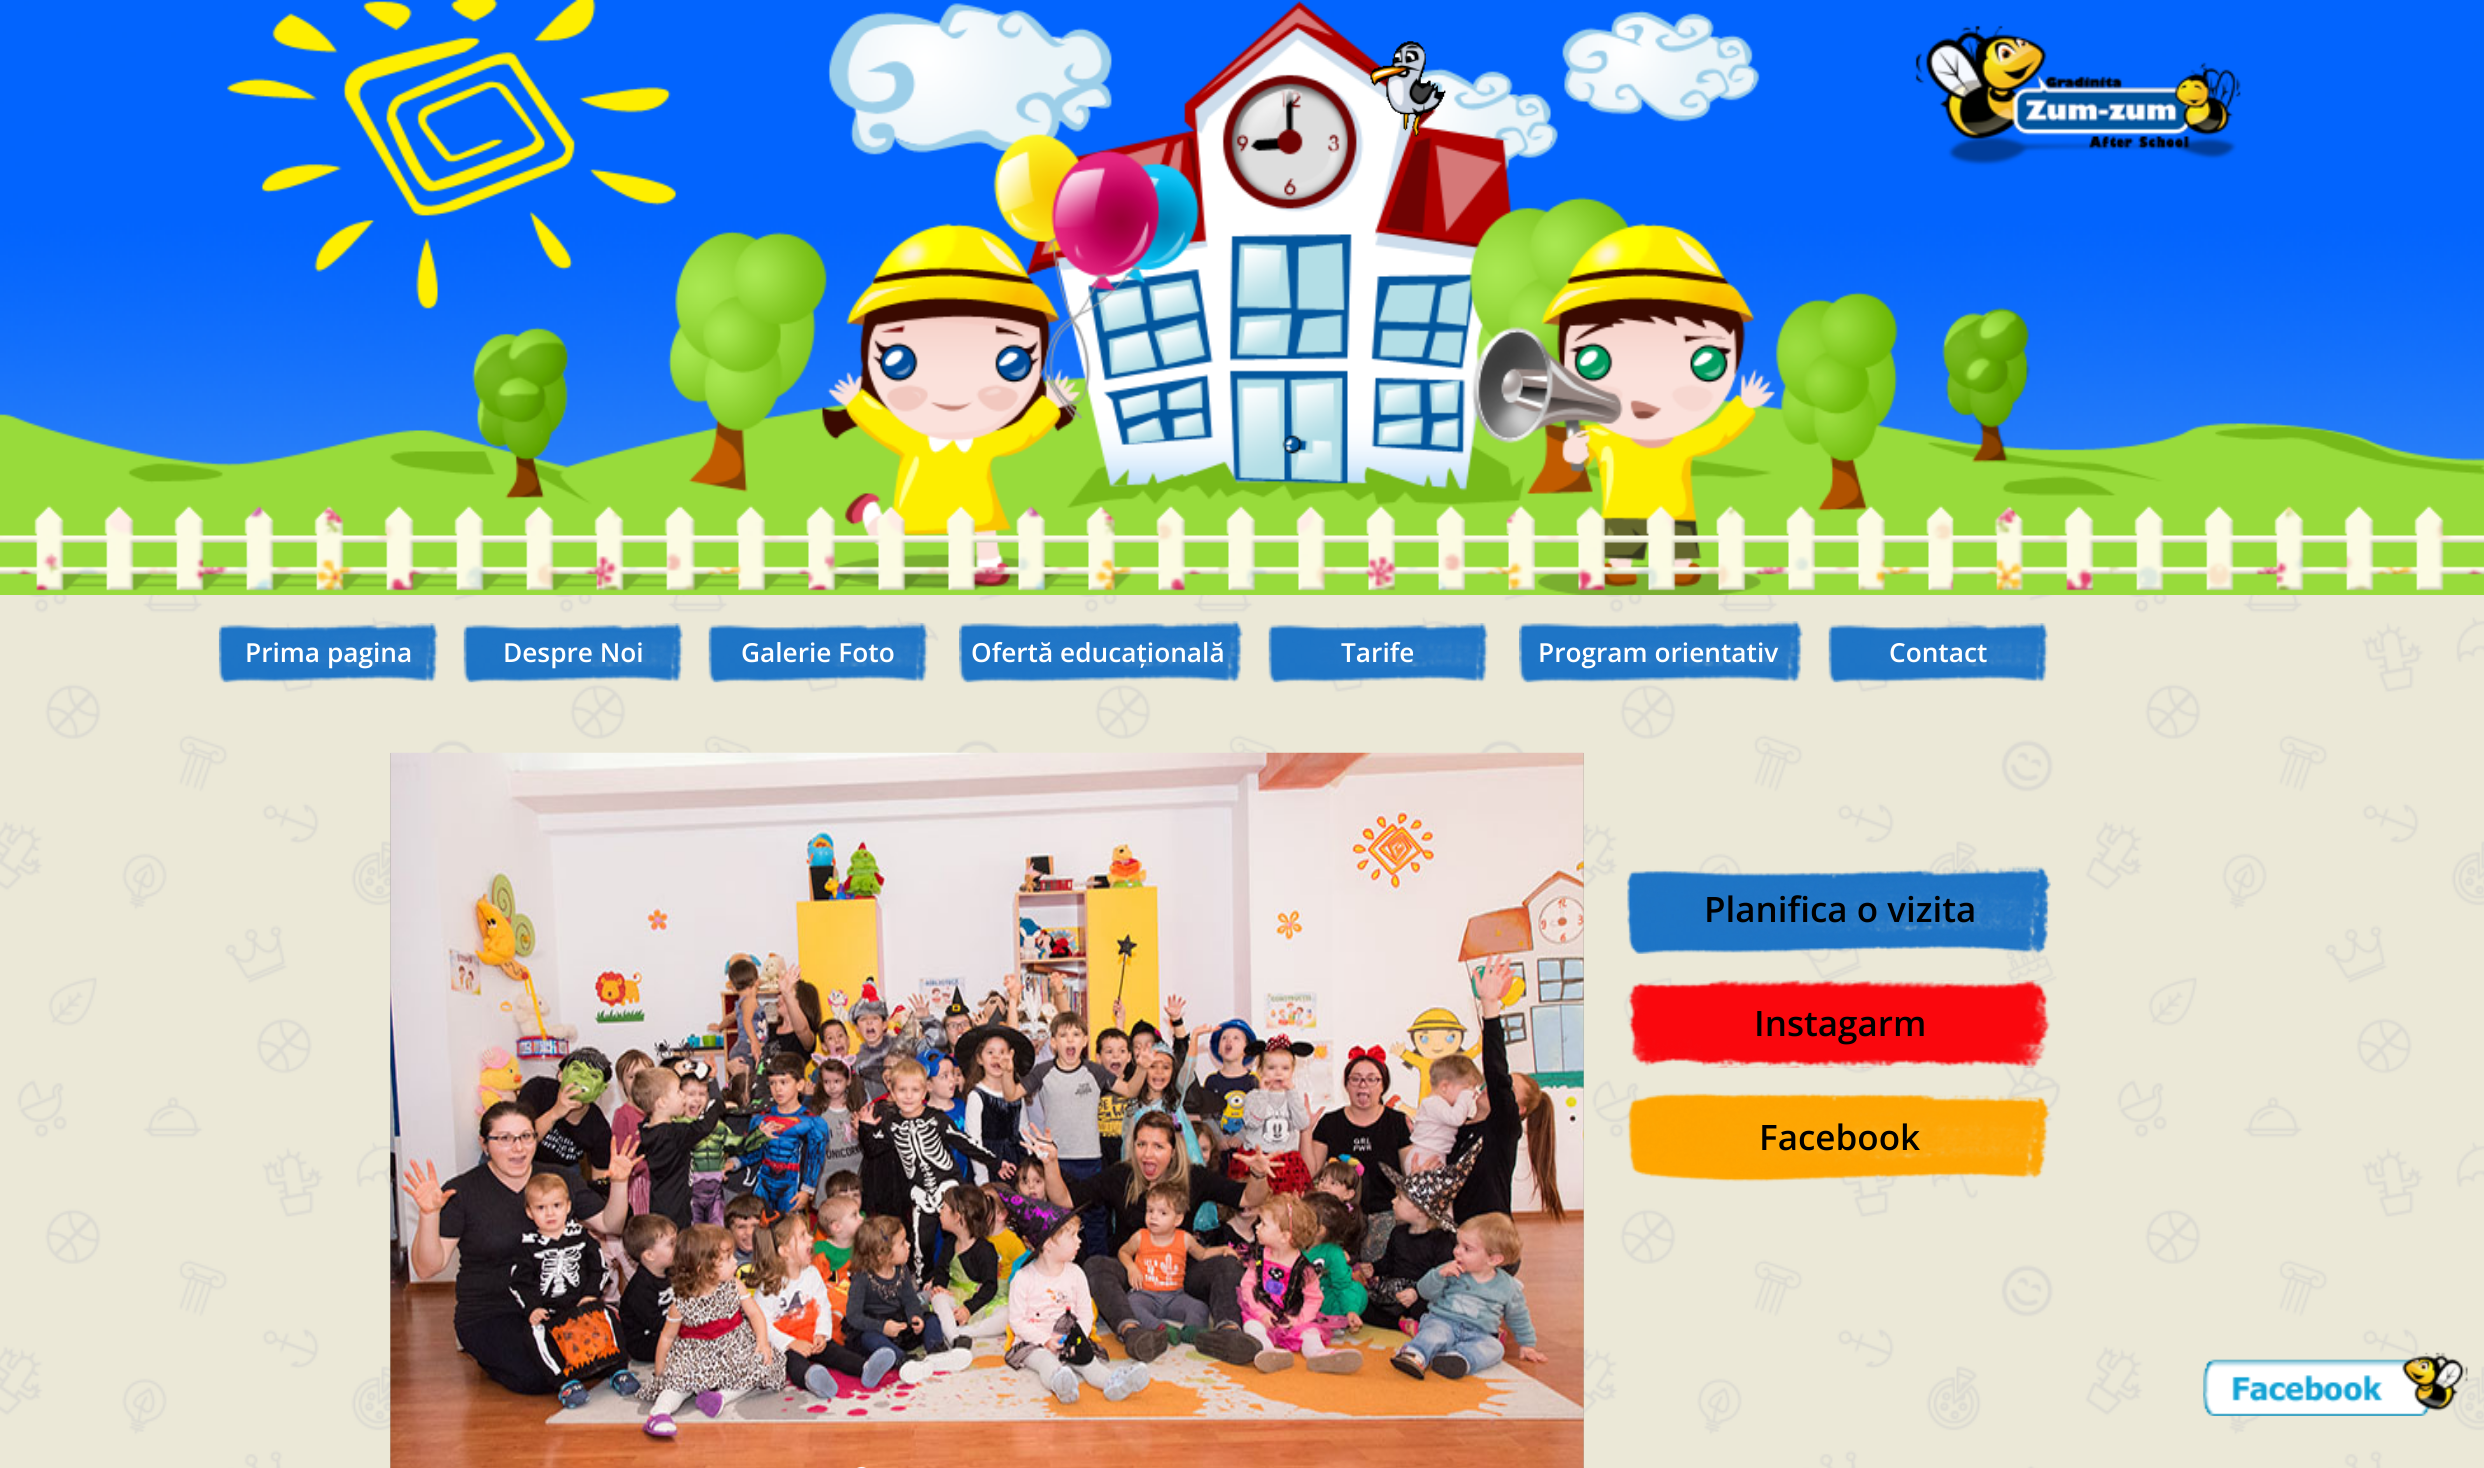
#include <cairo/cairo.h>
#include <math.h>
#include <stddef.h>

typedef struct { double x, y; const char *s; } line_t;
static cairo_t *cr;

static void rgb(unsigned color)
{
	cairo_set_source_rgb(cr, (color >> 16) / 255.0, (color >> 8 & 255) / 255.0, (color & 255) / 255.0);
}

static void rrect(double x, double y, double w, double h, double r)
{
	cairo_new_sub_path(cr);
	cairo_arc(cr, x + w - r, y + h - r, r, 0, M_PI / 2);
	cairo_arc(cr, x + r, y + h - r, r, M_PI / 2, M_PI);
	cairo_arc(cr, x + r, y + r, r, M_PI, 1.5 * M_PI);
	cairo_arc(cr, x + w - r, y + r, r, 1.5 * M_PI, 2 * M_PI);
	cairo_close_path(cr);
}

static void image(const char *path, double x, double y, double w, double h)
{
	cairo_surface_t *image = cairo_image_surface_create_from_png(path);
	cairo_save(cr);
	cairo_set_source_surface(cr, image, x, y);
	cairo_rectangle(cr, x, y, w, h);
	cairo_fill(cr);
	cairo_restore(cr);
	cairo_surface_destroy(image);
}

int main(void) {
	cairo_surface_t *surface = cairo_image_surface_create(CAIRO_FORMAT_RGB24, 2484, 1468);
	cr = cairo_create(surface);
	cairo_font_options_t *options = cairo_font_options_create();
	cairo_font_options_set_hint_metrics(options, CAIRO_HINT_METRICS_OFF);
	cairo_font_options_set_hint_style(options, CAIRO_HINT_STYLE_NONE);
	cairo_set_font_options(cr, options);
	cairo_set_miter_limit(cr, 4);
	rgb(0xffffff);
	cairo_paint(cr);
	image("img/1.png", 0, 595, 2484, 873);
	image("img/2.png", 0, 0, 2484, 595);
	image("img/3.png", 1370, 41, 76, 96);
	image("img/4.png", 218, 623, 220, 60);
	image("img/5.png", 463, 623, 220, 60);
	image("img/6.png", 708, 623, 220, 60);
	image("img/7.png", 959, 621, 284, 62);
	image("img/8.png", 1268, 623, 220, 60);
	image("img/7.png", 1519, 621, 284, 62);
	image("img/9.png", 1828, 623, 220, 60);
	image("img/10.png", 390, 752, 1194, 716);
	rrect(852, 1468, 19, 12, 9.5);
	rgb(0xffffff);
	cairo_stroke(cr);
	image("img/11.png", 1627, 866, 424, 88);
	image("img/12.png", 1628, 980, 423, 88);
	image("img/13.png", 1627, 1093, 424, 89);
	image("img/14.png", 2203, 1352, 265, 64);
	cairo_select_font_face(cr, "Open Sans SemiBold", CAIRO_FONT_SLANT_NORMAL, CAIRO_FONT_WEIGHT_NORMAL);
	cairo_set_font_size(cr, 26.25);
	{
		static const line_t items[] = {
			{245, 662, "Prima pagina"},
			{503, 662, "Despre Noi"},
			{741, 662, "Galerie Foto"},
			{971, 662, "Ofertă educațională"},
			{1341, 662, "Tarife"},
			{1538, 662, "Program orientativ"},
			{1889, 662, "Contact"},
		};
		for (size_t i = 0; i < sizeof items / sizeof *items; i++) {
			cairo_move_to(cr, items[i].x, items[i].y);
			cairo_show_text(cr, items[i].s);
		}
	}
	cairo_set_font_size(cr, 35);
	rgb(0x000000);
	{
		static const line_t items[] = {
			{1704, 922, "Planifica o vizita"},
			{1754, 1036, "Instagarm"},
			{1759, 1150, "Facebook"},
		};
		for (size_t i = 0; i < sizeof items / sizeof *items; i++) {
			cairo_move_to(cr, items[i].x, items[i].y);
			cairo_show_text(cr, items[i].s);
		}
	}
	cairo_surface_write_to_png(surface, "page.png");
	cairo_font_options_destroy(options);
	cairo_destroy(cr);
	cairo_surface_destroy(surface);
	return 0;
}
